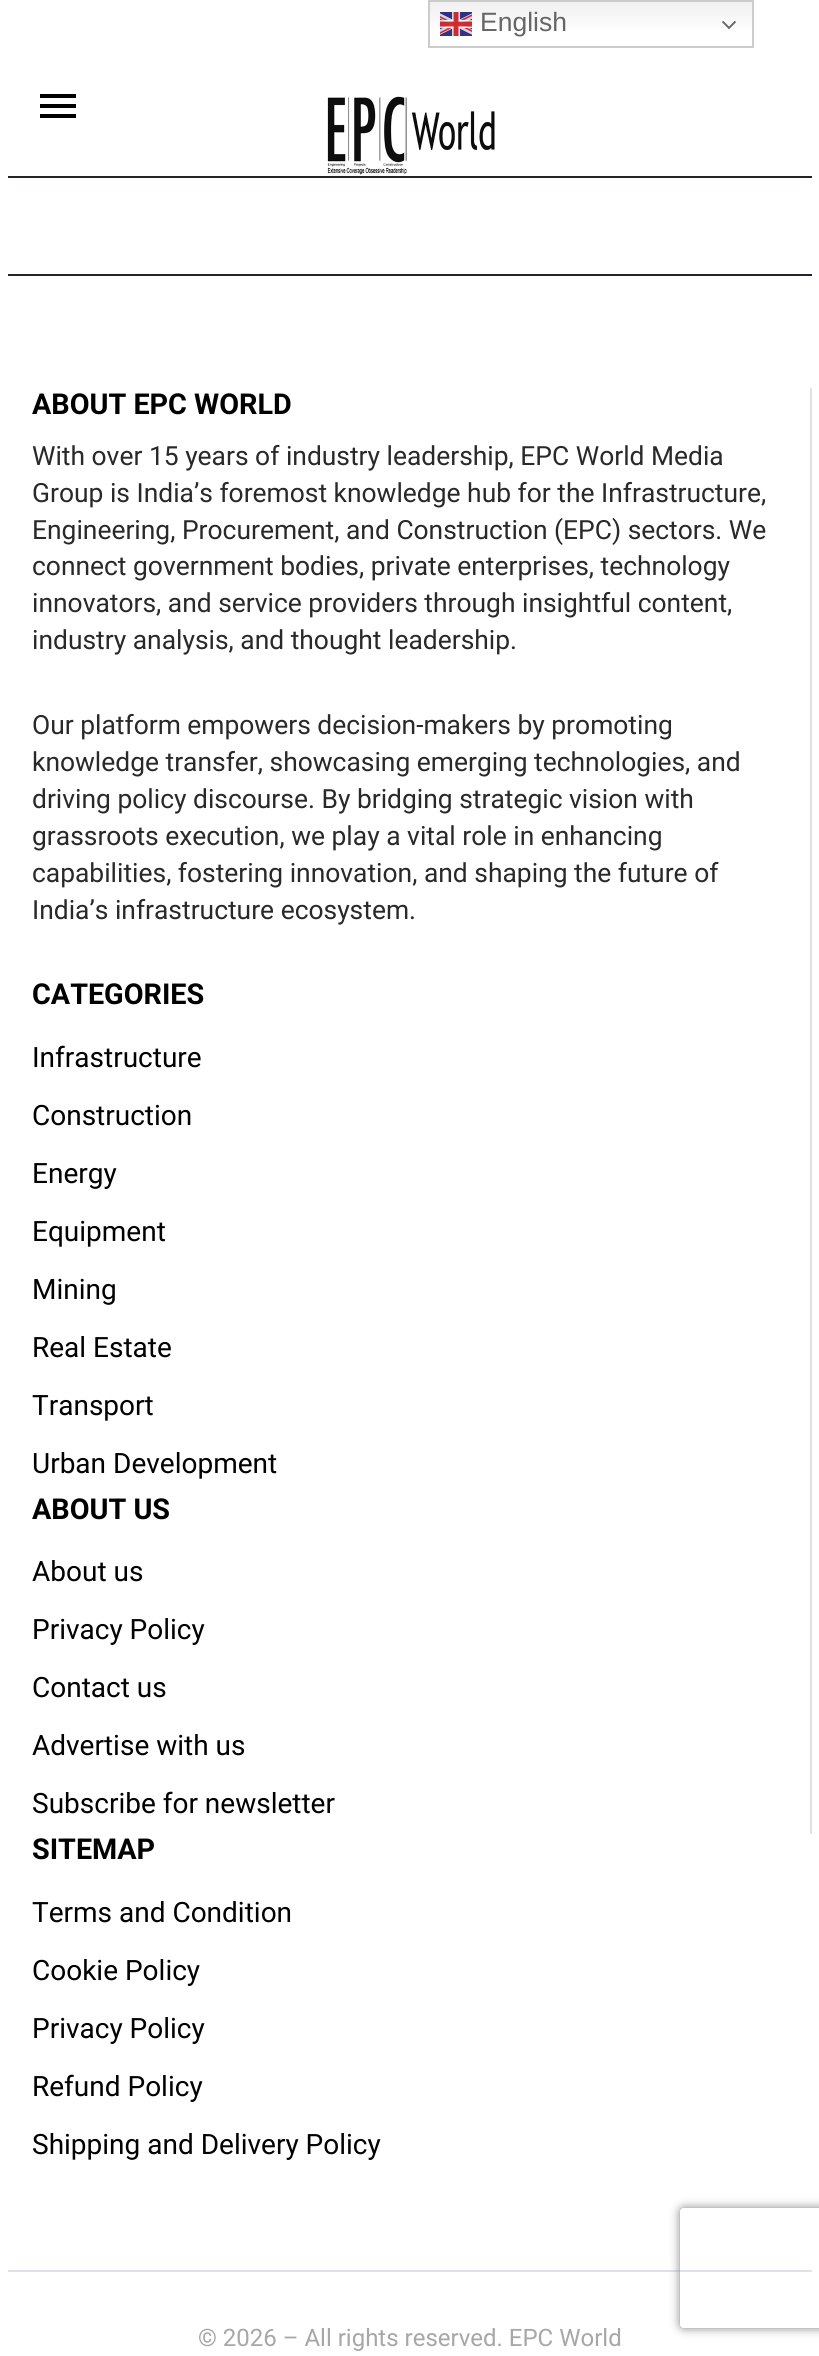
#include <cairo/cairo.h>
#include <math.h>
#include <stddef.h>

typedef struct { double x, y; const char *s; } line_t;
static cairo_t *cr;

static void rgb(unsigned color)
{
	cairo_set_source_rgb(cr, (color >> 16) / 255.0, (color >> 8 & 255) / 255.0, (color & 255) / 255.0);
}

static void rrect(double x, double y, double w, double h, double r)
{
	cairo_new_sub_path(cr);
	cairo_arc(cr, x + w - r, y + h - r, r, 0, M_PI / 2);
	cairo_arc(cr, x + r, y + h - r, r, M_PI / 2, M_PI);
	cairo_arc(cr, x + r, y + r, r, M_PI, 1.5 * M_PI);
	cairo_arc(cr, x + w - r, y + r, r, 1.5 * M_PI, 2 * M_PI);
	cairo_close_path(cr);
}

static void soft_shadow(double x, double y, double w, double h, double r, double blur, double alpha)
{
	cairo_push_group_with_content(cr, CAIRO_CONTENT_ALPHA);
	cairo_set_operator(cr, CAIRO_OPERATOR_SOURCE);
	for (int i = 15; i >= -15 && fmin(w, h) + blur * i / 3 > 0; i -= 2) {
		double e = blur * i / 6;
		cairo_set_source_rgba(cr, 0, 0, 0, alpha * erfc((i - 1) / 8.5) / 2);
		rrect(x - e, y - e, w + 2 * e, h + 2 * e, fmax(0, fmin(r + e + blur * .6, fmin(w, h) / 2 + e)));
		cairo_fill(cr);
	}
	cairo_pattern_t *soft = cairo_pop_group(cr);
	cairo_mask(cr, soft);
	cairo_pattern_destroy(soft);
}

static void image(const char *path, double x, double y, double w, double h)
{
	cairo_surface_t *image = cairo_image_surface_create_from_png(path);
	cairo_save(cr);
	cairo_set_source_surface(cr, image, x, y);
	cairo_rectangle(cr, x, y, w, h);
	cairo_fill(cr);
	cairo_restore(cr);
	cairo_surface_destroy(image);
}

int main(void) {
	cairo_surface_t *surface = cairo_image_surface_create(CAIRO_FORMAT_RGB24, 819, 2356);
	cr = cairo_create(surface);
	cairo_font_options_t *options = cairo_font_options_create();
	cairo_font_options_set_hint_metrics(options, CAIRO_HINT_METRICS_OFF);
	cairo_font_options_set_hint_style(options, CAIRO_HINT_STYLE_NONE);
	cairo_set_font_options(cr, options);
	cairo_set_miter_limit(cr, 4);
	cairo_pattern_t *gradient;
	rgb(0xffffff);
	cairo_paint(cr);
	gradient = cairo_pattern_create_linear(591, 0, 591, 48);
	cairo_pattern_add_color_stop_rgba(gradient, 0, 0.937, 0.937, 0.937, 1);
	cairo_pattern_add_color_stop_rgba(gradient, 0.7, 1, 1, 1, 1);
	cairo_set_source(cr, gradient);
	cairo_pattern_destroy(gradient);
	cairo_rectangle(cr, 430, 2, 322, 26);
	cairo_fill(cr);
	cairo_rectangle(cr, 429, 1, 324, 46);
	rgb(0xcccccc);
	cairo_stroke(cr);
	image("img/1.png", 440, 12, 32, 24);
	image("img/2.png", 722, 21, 14, 8);
	rgb(0xdee2e6);
	cairo_rectangle(cr, 8, 2270, 804, 2);
	cairo_fill(cr);
	cairo_rectangle(cr, 810, 388, 2, 1446);
	cairo_fill(cr);
	rgb(0x000000);
	cairo_new_path(cr);
	cairo_move_to(cr, 40, 118);
	cairo_line_to(cr, 40, 114);
	cairo_line_to(cr, 76, 114);
	cairo_line_to(cr, 76, 118);
	cairo_close_path(cr);
	cairo_move_to(cr, 40, 108);
	cairo_line_to(cr, 40, 104);
	cairo_line_to(cr, 76, 104);
	cairo_line_to(cr, 76, 108);
	cairo_close_path(cr);
	cairo_move_to(cr, 40, 98);
	cairo_line_to(cr, 40, 94);
	cairo_line_to(cr, 76, 94);
	cairo_line_to(cr, 76, 98);
	cairo_close_path(cr);
	cairo_fill(cr);
	image("img/3.png", 327, 96, 168, 79);
	rgb(0x212529);
	cairo_rectangle(cr, 8, 176, 804, 2);
	cairo_fill(cr);
	cairo_rectangle(cr, 8, 274, 804, 2);
	cairo_fill(cr);
	cairo_save(cr);
	cairo_set_fill_rule(cr, CAIRO_FILL_RULE_EVEN_ODD);
	cairo_new_path(cr);
	cairo_move_to(cr, 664, 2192);
	cairo_line_to(cr, 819, 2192);
	cairo_line_to(cr, 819, 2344);
	cairo_line_to(cr, 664, 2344);
	cairo_close_path(cr);
	cairo_move_to(cr, 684, 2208);
	cairo_line_to(cr, 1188, 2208);
	cairo_curve_to(cr, 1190, 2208, 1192, 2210, 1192, 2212);
	cairo_line_to(cr, 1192, 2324);
	cairo_curve_to(cr, 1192, 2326, 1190, 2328, 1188, 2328);
	cairo_line_to(cr, 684, 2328);
	cairo_curve_to(cr, 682, 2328, 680, 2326, 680, 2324);
	cairo_line_to(cr, 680, 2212);
	cairo_curve_to(cr, 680, 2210, 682, 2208, 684, 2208);
	cairo_close_path(cr);
	cairo_clip(cr);
	rgb(0x808080);
	soft_shadow(680, 2208, 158, 120, 4, 5, 1);
	cairo_restore(cr);
	cairo_select_font_face(cr, "Liberation Sans", CAIRO_FONT_SLANT_NORMAL, CAIRO_FONT_WEIGHT_NORMAL);
	cairo_set_font_size(cr, 26.5);
	rgb(0x666666);
	cairo_move_to(cr, 480, 31);
	cairo_show_text(cr, "English");
	cairo_select_font_face(cr, "Roboto", CAIRO_FONT_SLANT_NORMAL, CAIRO_FONT_WEIGHT_BOLD);
	cairo_set_font_size(cr, 28.75);
	rgb(0x000000);
	cairo_move_to(cr, 32, 414);
	cairo_show_text(cr, "ABOUT EPC WORLD");
	cairo_select_font_face(cr, "Roboto", CAIRO_FONT_SLANT_NORMAL, CAIRO_FONT_WEIGHT_NORMAL);
	cairo_set_font_size(cr, 26.4);
	rgb(0x292929);
	{
		static const line_t items[] = {
			{32, 465, "With over 15 years of industry leadership, EPC World Media"},
			{32, 502, "Group is India’s foremost knowledge hub for the Infrastructure,"},
			{32, 539, "Engineering, Procurement, and Construction (EPC) sectors. We"},
			{32, 575, "connect government bodies, private enterprises, technology"},
			{32, 612, "innovators, and service providers through insightful content,"},
			{32, 649, "industry analysis, and thought leadership."},
			{32, 734, "Our platform empowers decision-makers by promoting"},
			{32, 771, "knowledge transfer, showcasing emerging technologies, and"},
			{32, 808, "driving policy discourse. By bridging strategic vision with"},
			{32, 845, "grassroots execution, we play a vital role in enhancing"},
			{32, 882, "capabilities, fostering innovation, and shaping the future of"},
			{32, 919, "India’s infrastructure ecosystem."},
		};
		for (size_t i = 0; i < sizeof items / sizeof *items; i++) {
			cairo_move_to(cr, items[i].x, items[i].y);
			cairo_show_text(cr, items[i].s);
		}
	}
	cairo_select_font_face(cr, "Roboto", CAIRO_FONT_SLANT_NORMAL, CAIRO_FONT_WEIGHT_BOLD);
	cairo_set_font_size(cr, 28.75);
	rgb(0x000000);
	cairo_move_to(cr, 32, 1004);
	cairo_show_text(cr, "CATEGORIES");
	cairo_select_font_face(cr, "Roboto", CAIRO_FONT_SLANT_NORMAL, CAIRO_FONT_WEIGHT_NORMAL);
	cairo_set_font_size(cr, 28);
	{
		static const line_t items[] = {
			{32, 1067, "Infrastructure"},
			{32, 1125, "Construction"},
			{32, 1183, "Energy"},
			{32, 1241, "Equipment"},
			{32, 1299, "Mining"},
			{32, 1357, "Real Estate"},
			{32, 1415, "Transport"},
			{32, 1473, "Urban Development"},
		};
		for (size_t i = 0; i < sizeof items / sizeof *items; i++) {
			cairo_move_to(cr, items[i].x, items[i].y);
			cairo_show_text(cr, items[i].s);
		}
	}
	cairo_select_font_face(cr, "Roboto", CAIRO_FONT_SLANT_NORMAL, CAIRO_FONT_WEIGHT_BOLD);
	cairo_set_font_size(cr, 28.75);
	cairo_move_to(cr, 32, 1519);
	cairo_show_text(cr, "ABOUT US");
	cairo_select_font_face(cr, "Roboto", CAIRO_FONT_SLANT_NORMAL, CAIRO_FONT_WEIGHT_NORMAL);
	cairo_set_font_size(cr, 28);
	{
		static const line_t items[] = {
			{32, 1581, "About us"},
			{32, 1639, "Privacy Policy"},
			{32, 1697, "Contact us"},
			{32, 1755, "Advertise with us"},
			{32, 1813, "Subscribe for newsletter"},
		};
		for (size_t i = 0; i < sizeof items / sizeof *items; i++) {
			cairo_move_to(cr, items[i].x, items[i].y);
			cairo_show_text(cr, items[i].s);
		}
	}
	cairo_select_font_face(cr, "Roboto", CAIRO_FONT_SLANT_NORMAL, CAIRO_FONT_WEIGHT_BOLD);
	cairo_set_font_size(cr, 28.75);
	cairo_move_to(cr, 32, 1859);
	cairo_show_text(cr, "SITEMAP");
	cairo_select_font_face(cr, "Roboto", CAIRO_FONT_SLANT_NORMAL, CAIRO_FONT_WEIGHT_NORMAL);
	cairo_set_font_size(cr, 28);
	{
		static const line_t items[] = {
			{32, 1922, "Terms and Condition"},
			{32, 1980, "Cookie Policy"},
			{32, 2038, "Privacy Policy"},
			{32, 2096, "Refund Policy"},
			{32, 2154, "Shipping and Delivery Policy"},
		};
		for (size_t i = 0; i < sizeof items / sizeof *items; i++) {
			cairo_move_to(cr, items[i].x, items[i].y);
			cairo_show_text(cr, items[i].s);
		}
	}
	cairo_set_font_size(cr, 24);
	rgb(0xa7a7a7);
	cairo_move_to(cr, 198, 2346);
	cairo_show_text(cr, "© 2026 – All rights reserved. EPC World");
	cairo_surface_write_to_png(surface, "page.png");
	cairo_font_options_destroy(options);
	cairo_destroy(cr);
	cairo_surface_destroy(surface);
	return 0;
}
